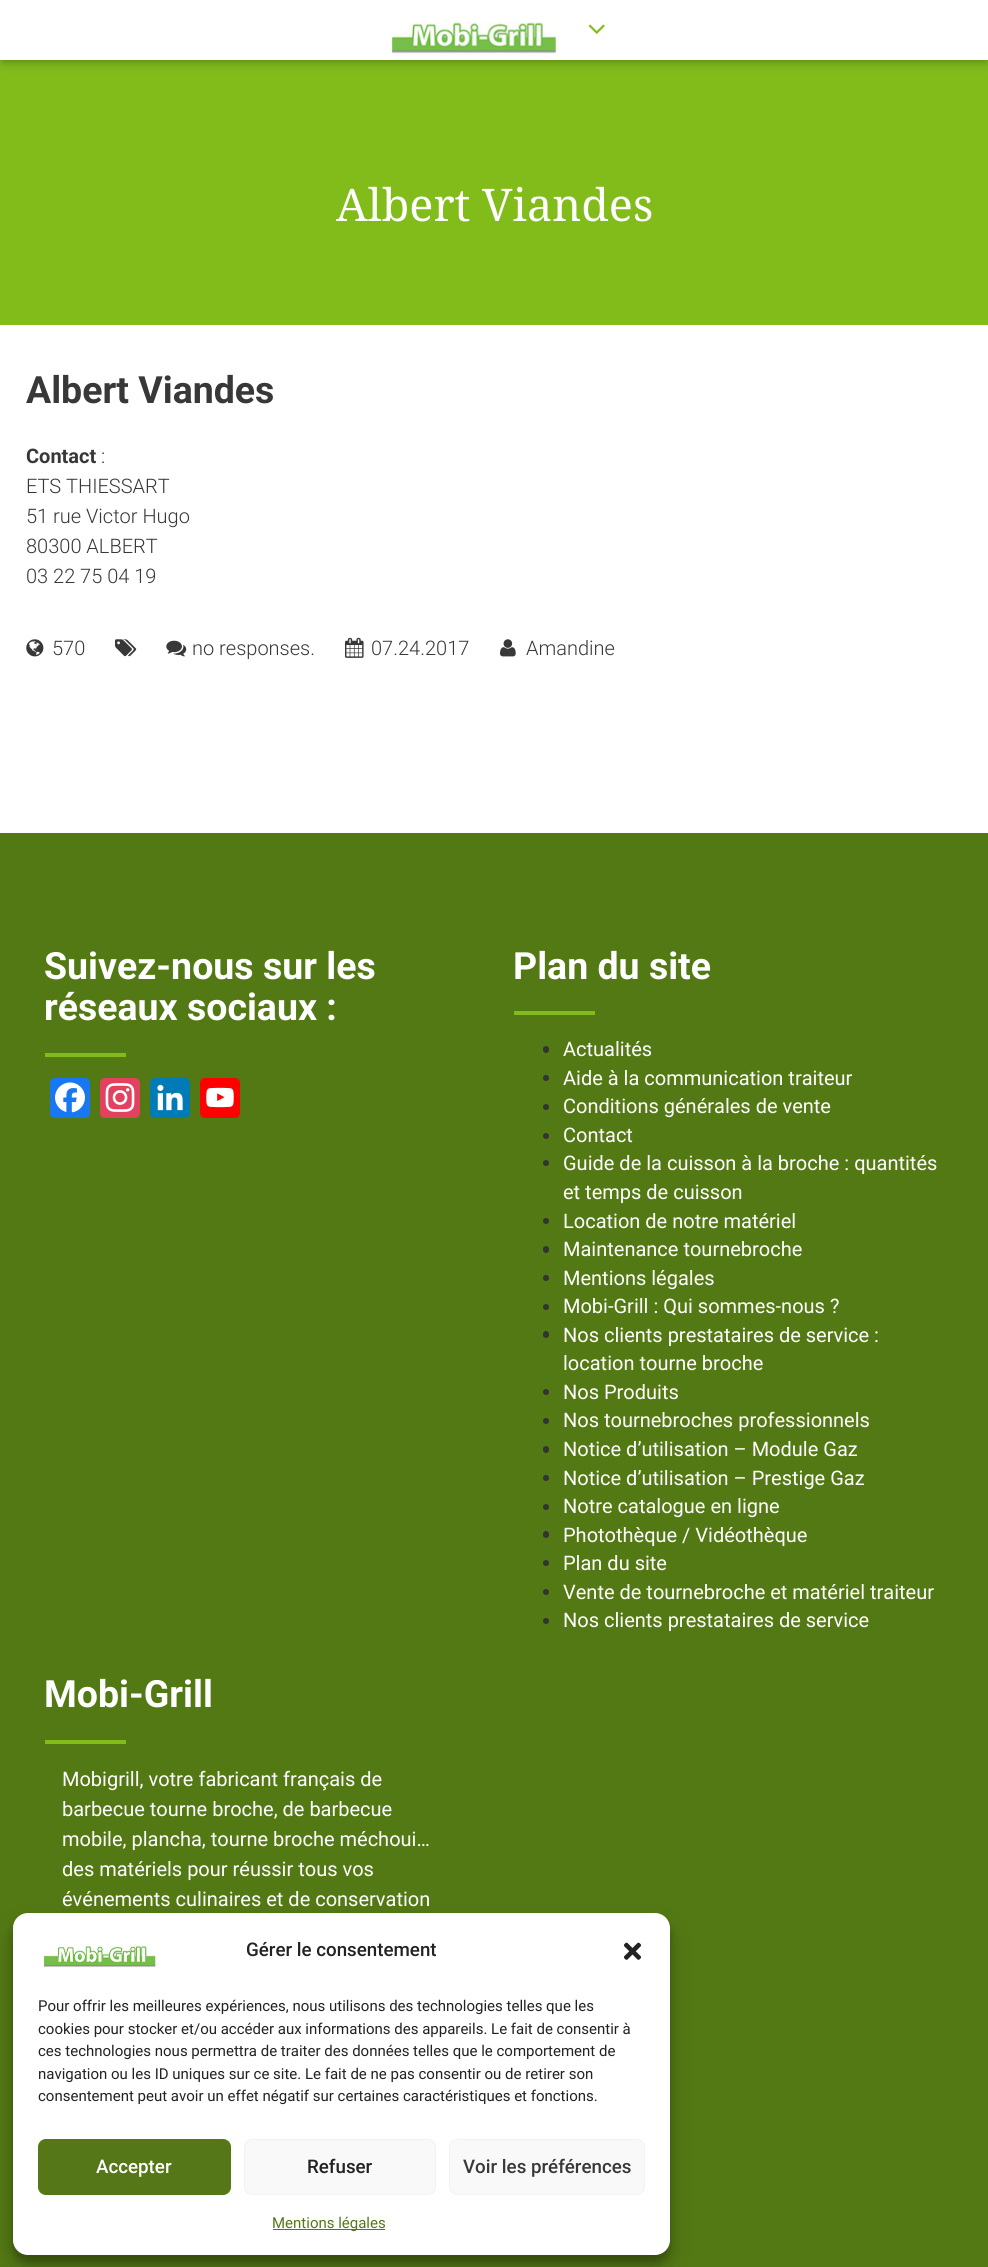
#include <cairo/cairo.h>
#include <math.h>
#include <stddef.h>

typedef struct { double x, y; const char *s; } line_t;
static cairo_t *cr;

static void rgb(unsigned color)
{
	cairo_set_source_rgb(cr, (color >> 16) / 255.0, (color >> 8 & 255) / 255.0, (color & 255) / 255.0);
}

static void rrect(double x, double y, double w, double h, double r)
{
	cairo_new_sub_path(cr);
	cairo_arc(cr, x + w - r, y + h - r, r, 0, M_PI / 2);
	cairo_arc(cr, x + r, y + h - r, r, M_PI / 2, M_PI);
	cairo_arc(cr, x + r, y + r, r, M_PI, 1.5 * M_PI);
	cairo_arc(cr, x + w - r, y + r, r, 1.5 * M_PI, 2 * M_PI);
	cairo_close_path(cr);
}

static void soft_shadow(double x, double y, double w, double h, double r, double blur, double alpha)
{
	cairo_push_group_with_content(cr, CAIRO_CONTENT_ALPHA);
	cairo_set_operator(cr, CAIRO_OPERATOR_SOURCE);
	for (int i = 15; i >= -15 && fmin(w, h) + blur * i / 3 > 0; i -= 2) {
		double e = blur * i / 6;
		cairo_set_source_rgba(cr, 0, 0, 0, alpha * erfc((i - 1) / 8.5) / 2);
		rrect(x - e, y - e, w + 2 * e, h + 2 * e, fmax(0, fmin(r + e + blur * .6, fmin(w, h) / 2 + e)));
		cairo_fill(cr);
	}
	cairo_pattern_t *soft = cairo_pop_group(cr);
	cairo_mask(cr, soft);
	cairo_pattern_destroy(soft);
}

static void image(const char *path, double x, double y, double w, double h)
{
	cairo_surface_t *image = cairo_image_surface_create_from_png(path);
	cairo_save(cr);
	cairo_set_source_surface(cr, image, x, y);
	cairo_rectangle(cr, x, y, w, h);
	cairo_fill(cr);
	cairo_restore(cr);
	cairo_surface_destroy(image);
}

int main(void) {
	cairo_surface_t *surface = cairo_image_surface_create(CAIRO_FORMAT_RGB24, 988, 2267);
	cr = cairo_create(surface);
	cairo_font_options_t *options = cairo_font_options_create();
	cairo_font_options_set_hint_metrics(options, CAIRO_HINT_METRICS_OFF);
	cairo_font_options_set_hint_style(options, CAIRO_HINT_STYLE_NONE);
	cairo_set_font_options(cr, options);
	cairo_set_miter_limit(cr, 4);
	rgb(0x82bc1b);
	cairo_paint(cr);
	rgb(0x000000);
	soft_shadow(3, 5, 983, 55, 0, 6, 0.41);
	rgb(0xffffff);
	cairo_rectangle(cr, 0, 0, 988, 60);
	cairo_fill(cr);
	image("img/1.png", 392, 22, 164, 32);
	image("img/2.png", 588, 24, 17, 10);
	cairo_rectangle(cr, 0, 325, 988, 508);
	cairo_fill(cr);
	image("img/3.png", 26, 639, 18, 18);
	image("img/4.png", 115, 639, 22, 18);
	image("img/5.png", 166, 640, 21, 17);
	image("img/6.png", 345, 637, 19, 21);
	image("img/7.png", 500, 639, 16, 18);
	rgb(0x537914);
	cairo_rectangle(cr, 0, 833, 988, 1434);
	cairo_fill(cr);
	rgb(0x82bc1b);
	cairo_rectangle(cr, 45, 1053, 81, 4);
	cairo_fill(cr);
	rgb(0x1877f2);
	rrect(50, 1078, 40, 40, 5);
	cairo_fill(cr);
	image("img/8.png", 55, 1082, 30, 31);
	rgb(0xe4405f);
	rrect(100, 1078, 40, 40, 5);
	cairo_fill(cr);
	image("img/9.png", 105, 1083, 30, 29);
	rgb(0x007bb5);
	rrect(150, 1078, 40, 40, 5);
	cairo_fill(cr);
	image("img/10.png", 157, 1084, 26, 27);
	rgb(0xff0000);
	rrect(200, 1078, 40, 40, 5);
	cairo_fill(cr);
	image("img/11.png", 206, 1087, 28, 21);
	rgb(0x82bc1b);
	cairo_rectangle(cr, 514, 1011, 81, 4);
	cairo_fill(cr);
	rgb(0x333333);
	rrect(543, 1046, 6, 7, 3);
	cairo_fill(cr);
	cairo_arc(cr, 546, 1078, 3, 0, 2 * M_PI);
	cairo_fill(cr);
	cairo_arc(cr, 546, 1107, 3, 0, 2 * M_PI);
	cairo_fill(cr);
	cairo_arc(cr, 546, 1136, 3, 0, 2 * M_PI);
	cairo_fill(cr);
	cairo_arc(cr, 546, 1163, 3, 0, 2 * M_PI);
	cairo_fill(cr);
	cairo_arc(cr, 546, 1221, 3, 0, 2 * M_PI);
	cairo_fill(cr);
	rrect(543, 1246, 6, 7, 3);
	cairo_fill(cr);
	cairo_arc(cr, 546, 1278, 3, 0, 2 * M_PI);
	cairo_fill(cr);
	cairo_arc(cr, 546, 1307, 3, 0, 2 * M_PI);
	cairo_fill(cr);
	rrect(543, 1331, 6, 7, 3);
	cairo_fill(cr);
	cairo_arc(cr, 546, 1392, 3, 0, 2 * M_PI);
	cairo_fill(cr);
	cairo_arc(cr, 546, 1421, 3, 0, 2 * M_PI);
	cairo_fill(cr);
	rrect(543, 1446, 6, 7, 3);
	cairo_fill(cr);
	cairo_arc(cr, 546, 1478, 3, 0, 2 * M_PI);
	cairo_fill(cr);
	cairo_arc(cr, 546, 1507, 3, 0, 2 * M_PI);
	cairo_fill(cr);
	rrect(543, 1531, 6, 7, 3);
	cairo_fill(cr);
	cairo_arc(cr, 546, 1563, 3, 0, 2 * M_PI);
	cairo_fill(cr);
	cairo_arc(cr, 546, 1592, 3, 0, 2 * M_PI);
	cairo_fill(cr);
	cairo_arc(cr, 546, 1621, 3, 0, 2 * M_PI);
	cairo_fill(cr);
	rgb(0x82bc1b);
	cairo_rectangle(cr, 45, 1740, 81, 4);
	cairo_fill(cr);
	rgb(0x000000);
	soft_shadow(13, 1920, 657, 343, 15, 4, 0.23);
	soft_shadow(13, 1925, 657, 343, 15, 12.5, 0.19);
	rgb(0xffffff);
	rrect(13, 1913, 657, 342, 15);
	cairo_fill(cr);
	image("img/12.png", 44, 1945, 112, 23);
	image("img/13.png", 623, 1942, 19, 18);
	rgb(0x557718);
	rrect(38.5, 2139.5, 192, 55, 7.5);
	cairo_fill_preserve(cr);
	cairo_set_line_width(cr, 1);
	cairo_stroke(cr);
	rgb(0xf9f9f9);
	rrect(244.5, 2139.5, 191, 55, 7.5);
	cairo_fill_preserve(cr);
	rgb(0xf2f2f2);
	cairo_stroke(cr);
	rgb(0xf9f9f9);
	rrect(449.5, 2139.5, 195, 55, 7.5);
	cairo_fill_preserve(cr);
	rgb(0xf2f2f2);
	cairo_stroke(cr);
	rgb(0x557718);
	cairo_rectangle(cr, 273, 2229, 112, 1);
	cairo_fill(cr);
	cairo_select_font_face(cr, "Droid Serif", CAIRO_FONT_SLANT_NORMAL, CAIRO_FONT_WEIGHT_NORMAL);
	cairo_set_font_size(cr, 45);
	rgb(0xffffff);
	cairo_move_to(cr, 336, 221);
	cairo_show_text(cr, "Albert Viandes");
	cairo_select_font_face(cr, "Roboto", CAIRO_FONT_SLANT_NORMAL, CAIRO_FONT_WEIGHT_BOLD);
	cairo_set_font_size(cr, 37.5);
	rgb(0x383838);
	cairo_move_to(cr, 26, 403);
	cairo_show_text(cr, "Albert Viandes");
	cairo_set_font_size(cr, 20);
	cairo_move_to(cr, 26, 463);
	cairo_show_text(cr, "Contact");
	cairo_select_font_face(cr, "Roboto Light", CAIRO_FONT_SLANT_NORMAL, CAIRO_FONT_WEIGHT_NORMAL);
	{
		static const line_t items[] = {
			{101, 463, ":"},
			{26, 493, "ETS THIESSART"},
			{26, 523, "51 rue Victor Hugo"},
			{26, 553, "80300 ALBERT"},
			{26, 583, "03 22 75 04 19"},
			{52, 655, "570"},
			{192, 655, "no responses."},
			{371, 655, "07.24.2017"},
			{526, 655, "Amandine"},
		};
		for (size_t i = 0; i < sizeof items / sizeof *items; i++) {
			cairo_move_to(cr, items[i].x, items[i].y);
			cairo_show_text(cr, items[i].s);
		}
	}
	cairo_select_font_face(cr, "Roboto", CAIRO_FONT_SLANT_NORMAL, CAIRO_FONT_WEIGHT_BOLD);
	cairo_set_font_size(cr, 37.5);
	rgb(0xffffff);
	{
		static const line_t items[] = {
			{44, 979, "Suivez-nous sur les"},
			{44, 1020, "réseaux sociaux :"},
			{513, 979, "Plan du site"},
		};
		for (size_t i = 0; i < sizeof items / sizeof *items; i++) {
			cairo_move_to(cr, items[i].x, items[i].y);
			cairo_show_text(cr, items[i].s);
		}
	}
	cairo_select_font_face(cr, "Roboto", CAIRO_FONT_SLANT_NORMAL, CAIRO_FONT_WEIGHT_NORMAL);
	cairo_set_font_size(cr, 20);
	{
		static const line_t items[] = {
			{563, 1056, "Actualités"},
			{563, 1085, "Aide à la communication traiteur"},
			{563, 1113, "Conditions générales de vente"},
			{563, 1142, "Contact"},
			{563, 1170, "Guide de la cuisson à la broche : quantités"},
			{563, 1199, "et temps de cuisson"},
			{563, 1228, "Location de notre matériel"},
			{563, 1256, "Maintenance tournebroche"},
			{563, 1285, "Mentions légales"},
			{563, 1313, "Mobi-Grill : Qui sommes-nous ?"},
			{563, 1342, "Nos clients prestataires de service :"},
			{563, 1370, "location tourne broche"},
			{563, 1399, "Nos Produits"},
			{563, 1427, "Nos tournebroches professionnels"},
			{563, 1456, "Notice d’utilisation – Module Gaz"},
			{563, 1485, "Notice d’utilisation – Prestige Gaz"},
			{563, 1513, "Notre catalogue en ligne"},
			{563, 1542, "Photothèque / Vidéothèque"},
			{563, 1570, "Plan du site"},
			{563, 1599, "Vente de tournebroche et matériel traiteur"},
			{563, 1627, "Nos clients prestataires de service"},
		};
		for (size_t i = 0; i < sizeof items / sizeof *items; i++) {
			cairo_move_to(cr, items[i].x, items[i].y);
			cairo_show_text(cr, items[i].s);
		}
	}
	cairo_select_font_face(cr, "Roboto", CAIRO_FONT_SLANT_NORMAL, CAIRO_FONT_WEIGHT_BOLD);
	cairo_set_font_size(cr, 37.5);
	cairo_move_to(cr, 44, 1707);
	cairo_show_text(cr, "Mobi-Grill");
	cairo_select_font_face(cr, "Roboto", CAIRO_FONT_SLANT_NORMAL, CAIRO_FONT_WEIGHT_NORMAL);
	cairo_set_font_size(cr, 20);
	{
		static const line_t items[] = {
			{62, 1786, "Mobigrill, votre fabricant français de"},
			{62, 1816, "barbecue tourne broche, de barbecue"},
			{62, 1846, "mobile, plancha, tourne broche méchoui…"},
			{62, 1876, "des matériels pour réussir tous vos"},
			{62, 1906, "événements culinaires et de conservation"},
		};
		for (size_t i = 0; i < sizeof items / sizeof *items; i++) {
			cairo_move_to(cr, items[i].x, items[i].y);
			cairo_show_text(cr, items[i].s);
		}
	}
	cairo_select_font_face(cr, "Roboto Medium", CAIRO_FONT_SLANT_NORMAL, CAIRO_FONT_WEIGHT_NORMAL);
	cairo_set_font_size(cr, 18.75);
	rgb(0x222222);
	cairo_move_to(cr, 246, 1956);
	cairo_show_text(cr, "Gérer le consentement");
	cairo_select_font_face(cr, "Roboto", CAIRO_FONT_SLANT_NORMAL, CAIRO_FONT_WEIGHT_NORMAL);
	cairo_set_font_size(cr, 15);
	{
		static const line_t items[] = {
			{38, 2011, "Pour offrir les meilleures expériences, nous utilisons des technologies telles que les"},
			{38, 2034, "cookies pour stocker et/ou accéder aux informations des appareils. Le fait de consentir à"},
			{38, 2056, "ces technologies nous permettra de traiter des données telles que le comportement de"},
			{38, 2079, "navigation ou les ID uniques sur ce site. Le fait de ne pas consentir ou de retirer son"},
			{38, 2101, "consentement peut avoir un effet négatif sur certaines caractéristiques et fonctions."},
		};
		for (size_t i = 0; i < sizeof items / sizeof *items; i++) {
			cairo_move_to(cr, items[i].x, items[i].y);
			cairo_show_text(cr, items[i].s);
		}
	}
	cairo_select_font_face(cr, "Roboto Medium", CAIRO_FONT_SLANT_NORMAL, CAIRO_FONT_WEIGHT_NORMAL);
	cairo_set_font_size(cr, 18.75);
	rgb(0xffffff);
	cairo_move_to(cr, 96, 2173);
	cairo_show_text(cr, "Accepter");
	rgb(0x222222);
	cairo_move_to(cr, 307, 2173);
	cairo_show_text(cr, "Refuser");
	rgb(0x383838);
	cairo_move_to(cr, 463, 2173);
	cairo_show_text(cr, "Voir les préférences");
	cairo_select_font_face(cr, "Roboto", CAIRO_FONT_SLANT_NORMAL, CAIRO_FONT_WEIGHT_NORMAL);
	cairo_set_font_size(cr, 15);
	rgb(0x557718);
	cairo_move_to(cr, 272, 2228);
	cairo_show_text(cr, "Mentions légales");
	cairo_surface_write_to_png(surface, "page.png");
	cairo_font_options_destroy(options);
	cairo_destroy(cr);
	cairo_surface_destroy(surface);
	return 0;
}
